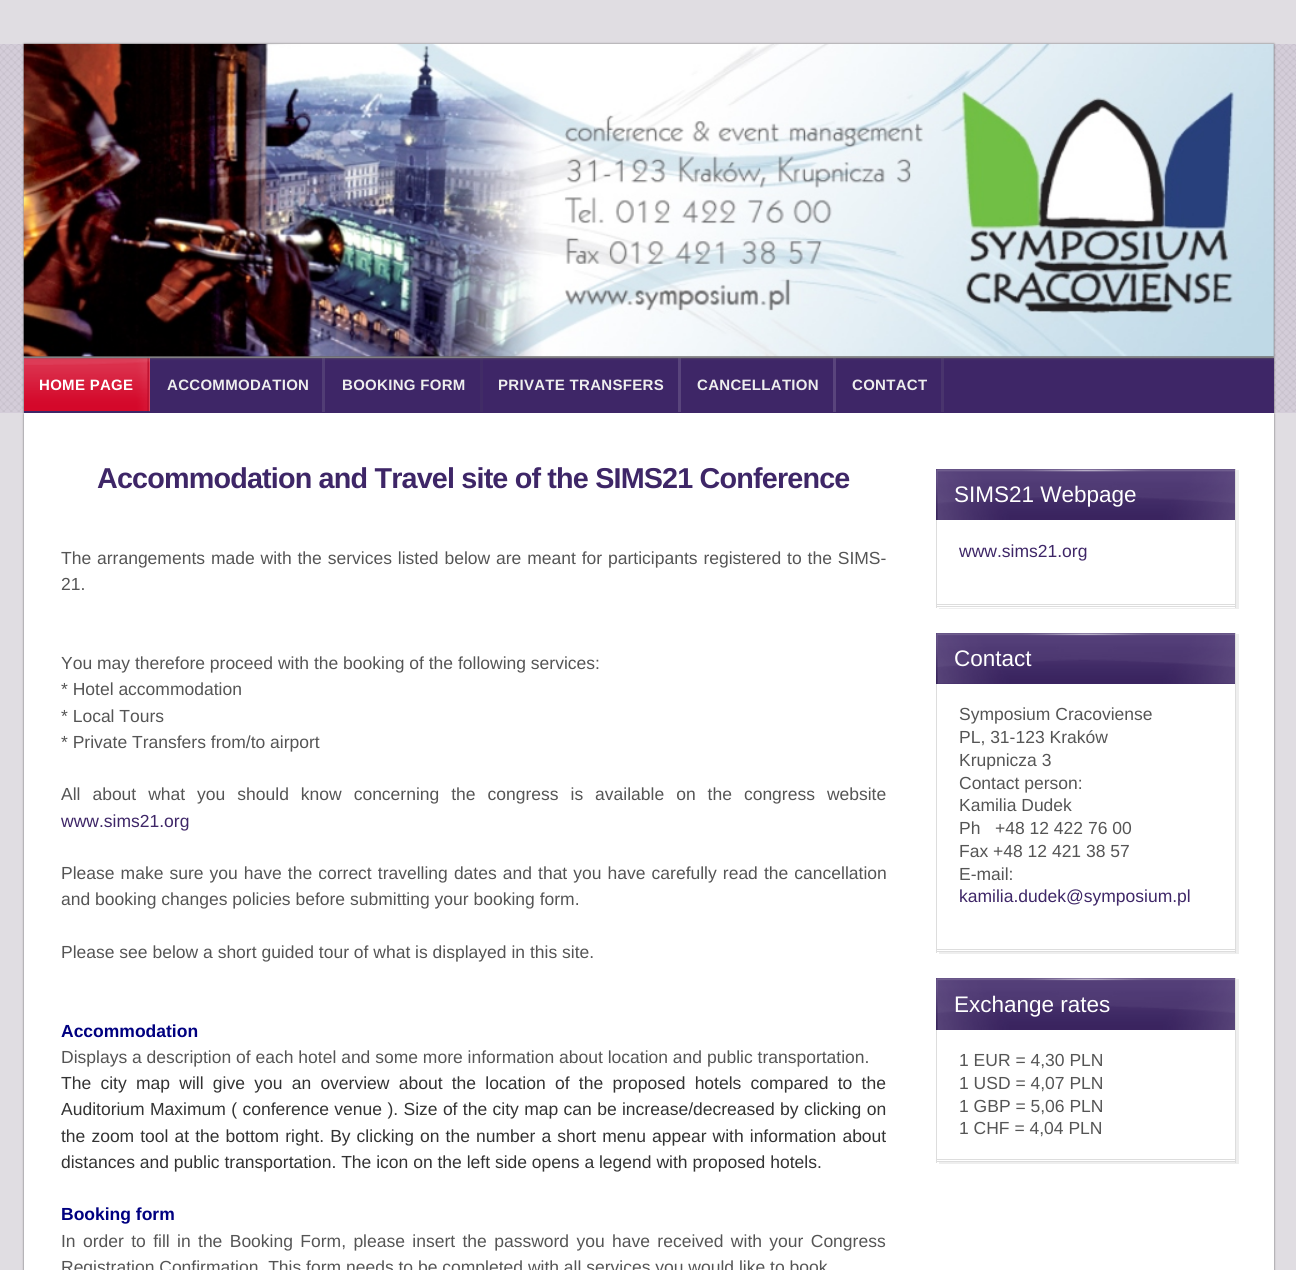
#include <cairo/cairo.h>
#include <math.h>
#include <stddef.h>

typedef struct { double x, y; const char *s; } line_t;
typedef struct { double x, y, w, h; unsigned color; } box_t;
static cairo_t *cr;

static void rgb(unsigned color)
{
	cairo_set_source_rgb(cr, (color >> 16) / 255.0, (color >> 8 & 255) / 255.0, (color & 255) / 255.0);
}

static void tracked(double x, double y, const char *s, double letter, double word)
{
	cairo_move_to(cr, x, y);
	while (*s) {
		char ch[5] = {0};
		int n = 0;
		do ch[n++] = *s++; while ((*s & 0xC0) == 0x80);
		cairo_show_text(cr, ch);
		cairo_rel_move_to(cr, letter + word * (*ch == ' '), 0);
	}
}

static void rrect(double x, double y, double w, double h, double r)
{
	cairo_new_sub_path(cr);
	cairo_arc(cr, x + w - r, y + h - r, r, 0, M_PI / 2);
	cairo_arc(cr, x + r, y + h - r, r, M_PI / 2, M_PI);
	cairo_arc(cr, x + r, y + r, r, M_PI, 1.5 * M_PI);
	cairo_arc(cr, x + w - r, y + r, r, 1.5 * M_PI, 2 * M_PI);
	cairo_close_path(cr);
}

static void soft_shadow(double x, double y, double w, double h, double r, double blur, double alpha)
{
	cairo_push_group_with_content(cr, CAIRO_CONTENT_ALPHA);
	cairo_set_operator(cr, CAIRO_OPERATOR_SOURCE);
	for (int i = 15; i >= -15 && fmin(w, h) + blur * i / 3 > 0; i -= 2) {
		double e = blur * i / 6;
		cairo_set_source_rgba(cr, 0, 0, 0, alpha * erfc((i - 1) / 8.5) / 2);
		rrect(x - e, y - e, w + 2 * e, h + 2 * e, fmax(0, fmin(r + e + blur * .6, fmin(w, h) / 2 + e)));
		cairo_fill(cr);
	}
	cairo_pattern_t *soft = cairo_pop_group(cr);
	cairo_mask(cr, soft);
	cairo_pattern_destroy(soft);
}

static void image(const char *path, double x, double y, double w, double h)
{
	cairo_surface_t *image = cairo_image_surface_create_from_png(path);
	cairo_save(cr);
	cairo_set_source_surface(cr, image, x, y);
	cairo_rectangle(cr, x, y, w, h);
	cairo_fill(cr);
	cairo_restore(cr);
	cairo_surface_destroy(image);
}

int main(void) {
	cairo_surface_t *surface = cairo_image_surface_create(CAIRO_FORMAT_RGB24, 1296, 1270);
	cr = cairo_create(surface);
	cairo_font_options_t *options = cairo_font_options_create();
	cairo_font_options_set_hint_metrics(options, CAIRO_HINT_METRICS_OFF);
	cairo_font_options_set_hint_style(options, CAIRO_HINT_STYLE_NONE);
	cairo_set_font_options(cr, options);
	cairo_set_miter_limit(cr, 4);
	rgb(0xe0dde2);
	cairo_paint(cr);
	rgb(0xd4cdd9);
	cairo_rectangle(cr, 0, 44, 1296, 369);
	cairo_fill(cr);
	rgb(0x666666);
	soft_shadow(24, 414, 1250, 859, 0, 1, 1);
	image("img/1.png", 0, 44, 1296, 368);
	rgb(0xffffff);
	cairo_rectangle(cr, 24, 413, 1250, 857);
	cairo_fill(cr);
	cairo_save(cr);
	cairo_rectangle(cr, 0, 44, 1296, 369);
	cairo_clip(cr);
	rgb(0x555555);
	soft_shadow(24, 359, 1250, 56, 0, 1, 1);
	cairo_restore(cr);
	rgb(0x3e2667);
	cairo_rectangle(cr, 24, 358, 1250, 55);
	cairo_fill(cr);
	rgb(0xd4082a);
	cairo_rectangle(cr, 24, 358, 126, 53);
	cairo_fill(cr);
	image("img/3.png", 23, 357, 127, 55);
	cairo_set_source_rgba(cr, 0.8, 0.8, 0.8, 0.14);
	cairo_rectangle(cr, 322, 357, 3, 55);
	cairo_fill(cr);
	cairo_set_source_rgba(cr, 0.38, 0.38, 0.38, 0.11);
	cairo_rectangle(cr, 480, 357, 3, 55);
	cairo_fill(cr);
	cairo_set_source_rgba(cr, 0.945, 0.945, 0.945, 0.15);
	cairo_rectangle(cr, 678, 357, 3, 55);
	cairo_fill(cr);
	cairo_rectangle(cr, 833, 357, 3, 55);
	cairo_fill(cr);
	cairo_set_source_rgba(cr, 0.592, 0.592, 0.592, 0.13);
	cairo_rectangle(cr, 941, 357, 3, 55);
	cairo_fill(cr);
	rgb(0x666666);
	soft_shadow(24, 44, 1250, 314, 0, 1, 1);
	image("img/2.png", 23, 43, 1251, 314);
	rgb(0xeeeeee);
	cairo_new_path(cr);
	cairo_move_to(cr, 939, 608);
	cairo_line_to(cr, 939, 609);
	cairo_line_to(cr, 1239, 609);
	cairo_line_to(cr, 1239, 470);
	cairo_line_to(cr, 1236, 470);
	cairo_line_to(cr, 1236, 608);
	cairo_close_path(cr);
	cairo_fill(cr);
	{
		static const box_t items[] = {
			{1235, 469, 1, 139, 0xdddddd},
			{936, 604, 300, 1, 0xdddddd},
			{936, 606, 300, 1, 0xdddddd},
			{936, 520, 1, 88, 0xdddddd},
			{936, 469, 299, 51, 0x3e2667},
		};
		for (size_t i = 0; i < sizeof items / sizeof *items; i++) {
			rgb(items[i].color);
			cairo_rectangle(cr, items[i].x, items[i].y, items[i].w, items[i].h);
			cairo_fill(cr);
		}
	}
	image("img/4.png", 936, 469, 299, 51);
	rgb(0xeeeeee);
	cairo_new_path(cr);
	cairo_move_to(cr, 939, 952);
	cairo_line_to(cr, 939, 954);
	cairo_line_to(cr, 1239, 954);
	cairo_line_to(cr, 1239, 634);
	cairo_line_to(cr, 1236, 634);
	cairo_line_to(cr, 1236, 952);
	cairo_close_path(cr);
	cairo_fill(cr);
	{
		static const box_t items[] = {
			{1235, 633, 1, 320, 0xdddddd},
			{936, 949, 300, 1, 0xdddddd},
			{936, 951, 300, 1, 0xdddddd},
			{936, 684, 1, 269, 0xdddddd},
			{936, 633, 299, 51, 0x3e2667},
		};
		for (size_t i = 0; i < sizeof items / sizeof *items; i++) {
			rgb(items[i].color);
			cairo_rectangle(cr, items[i].x, items[i].y, items[i].w, items[i].h);
			cairo_fill(cr);
		}
	}
	image("img/5.png", 936, 633, 299, 51);
	rgb(0xeeeeee);
	cairo_new_path(cr);
	cairo_move_to(cr, 939, 1162);
	cairo_line_to(cr, 939, 1164);
	cairo_line_to(cr, 1239, 1164);
	cairo_line_to(cr, 1239, 979);
	cairo_line_to(cr, 1236, 979);
	cairo_line_to(cr, 1236, 1162);
	cairo_close_path(cr);
	cairo_fill(cr);
	{
		static const box_t items[] = {
			{1235, 978, 1, 185, 0xdddddd},
			{936, 1159, 300, 1, 0xdddddd},
			{936, 1161, 300, 1, 0xdddddd},
			{936, 1030, 1, 133, 0xdddddd},
			{936, 978, 299, 52, 0x3e2667},
		};
		for (size_t i = 0; i < sizeof items / sizeof *items; i++) {
			rgb(items[i].color);
			cairo_rectangle(cr, items[i].x, items[i].y, items[i].w, items[i].h);
			cairo_fill(cr);
		}
	}
	image("img/6.png", 936, 978, 299, 52);
	cairo_select_font_face(cr, "Liberation Sans", CAIRO_FONT_SLANT_NORMAL, CAIRO_FONT_WEIGHT_BOLD);
	cairo_set_font_size(cr, 15);
	rgb(0xffffff);
	tracked(39, 390, "HOME PAGE", 0.3, 0);
	rgb(0xeeeeee);
	{
		static const line_t items[] = {
			{167, 390, "ACCOMMODATION"},
			{342, 390, "BOOKING FORM"},
			{498, 390, "PRIVATE TRANSFERS"},
			{697, 390, "CANCELLATION"},
			{852, 390, "CONTACT"},
		};
		for (size_t i = 0; i < sizeof items / sizeof *items; i++) {
			tracked(items[i].x, items[i].y, items[i].s, 0.3, 0);
		}
	}
	cairo_set_font_size(cr, 28.75);
	rgb(0x3e2667);
	tracked(97, 488, "Accommodation and Travel site of the SIMS21 Conference", -0.83, 0);
	cairo_select_font_face(cr, "Liberation Sans", CAIRO_FONT_SLANT_NORMAL, CAIRO_FONT_WEIGHT_NORMAL);
	cairo_set_font_size(cr, 17.5);
	rgb(0x555555);
	tracked(61, 564, "The arrangements made with the services listed below are meant for participants registered to the SIMS-", 0, 1);
	{
		static const line_t items[] = {
			{61, 590, "21."},
			{61, 669, "You may therefore proceed with the booking of the following services:"},
			{61, 695, "* Hotel accommodation"},
			{61, 722, "* Local Tours"},
			{61, 748, "* Private Transfers from/to airport"},
		};
		for (size_t i = 0; i < sizeof items / sizeof *items; i++) {
			cairo_move_to(cr, items[i].x, items[i].y);
			cairo_show_text(cr, items[i].s);
		}
	}
	tracked(61, 800, "All about what you should know concerning the congress is available on the congress website", 0, 7.1);
	rgb(0x3e2667);
	cairo_move_to(cr, 61, 827);
	cairo_show_text(cr, "www.sims21.org");
	rgb(0x555555);
	tracked(61, 879, "Please make sure you have the correct travelling dates and that you have carefully read the cancellation", 0, 1.2);
	cairo_move_to(cr, 61, 905);
	cairo_show_text(cr, "and booking changes policies before submitting your booking form.");
	cairo_move_to(cr, 61, 958);
	cairo_show_text(cr, "Please see below a short guided tour of what is displayed in this site.");
	cairo_select_font_face(cr, "Liberation Sans", CAIRO_FONT_SLANT_NORMAL, CAIRO_FONT_WEIGHT_BOLD);
	rgb(0x000080);
	cairo_move_to(cr, 61, 1037);
	cairo_show_text(cr, "Accommodation");
	cairo_select_font_face(cr, "Liberation Sans", CAIRO_FONT_SLANT_NORMAL, CAIRO_FONT_WEIGHT_NORMAL);
	rgb(0x555555);
	cairo_move_to(cr, 61, 1063);
	cairo_show_text(cr, "Displays a description of each hotel and some more information about location and public transportation.");
	rgb(0x333333);
	tracked(61, 1089, "The city map will give you an overview about the location of the proposed hotels compared to the", 0, 4.4);
	tracked(61, 1115, "Auditorium Maximum ( conference venue ). Size of the city map can be increase/decreased by clicking on", 0, 0.5);
	tracked(61, 1142, "the zoom tool at the bottom right. By clicking on the number a short menu appear with information about", 0, 1.2);
	cairo_move_to(cr, 61, 1168);
	cairo_show_text(cr, "distances and public transportation. The icon on the left side opens a legend with proposed hotels.");
	cairo_select_font_face(cr, "Liberation Sans", CAIRO_FONT_SLANT_NORMAL, CAIRO_FONT_WEIGHT_BOLD);
	rgb(0x000080);
	cairo_move_to(cr, 61, 1220);
	cairo_show_text(cr, "Booking form");
	cairo_select_font_face(cr, "Liberation Sans", CAIRO_FONT_SLANT_NORMAL, CAIRO_FONT_WEIGHT_NORMAL);
	rgb(0x555555);
	tracked(61, 1247, "In order to fill in the Booking Form, please insert the password you have received with your Congress", 0, 2.5);
	cairo_move_to(cr, 61, 1273);
	cairo_show_text(cr, "Registration Confirmation. This form needs to be completed with all services you would like to book");
	cairo_set_font_size(cr, 22.5);
	rgb(0xffffff);
	cairo_move_to(cr, 954, 502);
	cairo_show_text(cr, "SIMS21 Webpage");
	cairo_set_font_size(cr, 17.5);
	rgb(0x3e2667);
	cairo_move_to(cr, 959, 557);
	cairo_show_text(cr, "www.sims21.org");
	cairo_set_font_size(cr, 22.5);
	rgb(0xffffff);
	cairo_move_to(cr, 954, 666);
	cairo_show_text(cr, "Contact");
	cairo_set_font_size(cr, 17.5);
	rgb(0x555555);
	{
		static const line_t items[] = {
			{959, 720, "Symposium Cracoviense"},
			{959, 743, "PL, 31-123 Kraków"},
			{959, 766, "Krupnicza 3"},
			{959, 789, "Contact person:"},
			{959, 811, "Kamilia Dudek"},
			{959, 834, "Ph   +48 12 422 76 00"},
			{959, 857, "Fax +48 12 421 38 57"},
			{959, 880, "E-mail:"},
		};
		for (size_t i = 0; i < sizeof items / sizeof *items; i++) {
			cairo_move_to(cr, items[i].x, items[i].y);
			cairo_show_text(cr, items[i].s);
		}
	}
	rgb(0x3e2667);
	cairo_move_to(cr, 959, 902);
	cairo_show_text(cr, "kamilia.dudek@symposium.pl");
	cairo_set_font_size(cr, 22.5);
	rgb(0xffffff);
	cairo_move_to(cr, 954, 1012);
	cairo_show_text(cr, "Exchange rates");
	cairo_set_font_size(cr, 17.5);
	rgb(0x555555);
	{
		static const line_t items[] = {
			{959, 1066, "1 EUR = 4,30 PLN"},
			{959, 1089, "1 USD = 4,07 PLN"},
			{959, 1112, "1 GBP = 5,06 PLN"},
			{959, 1134, "1 CHF = 4,04 PLN"},
		};
		for (size_t i = 0; i < sizeof items / sizeof *items; i++) {
			cairo_move_to(cr, items[i].x, items[i].y);
			cairo_show_text(cr, items[i].s);
		}
	}
	cairo_surface_write_to_png(surface, "page.png");
	cairo_font_options_destroy(options);
	cairo_destroy(cr);
	cairo_surface_destroy(surface);
	return 0;
}
